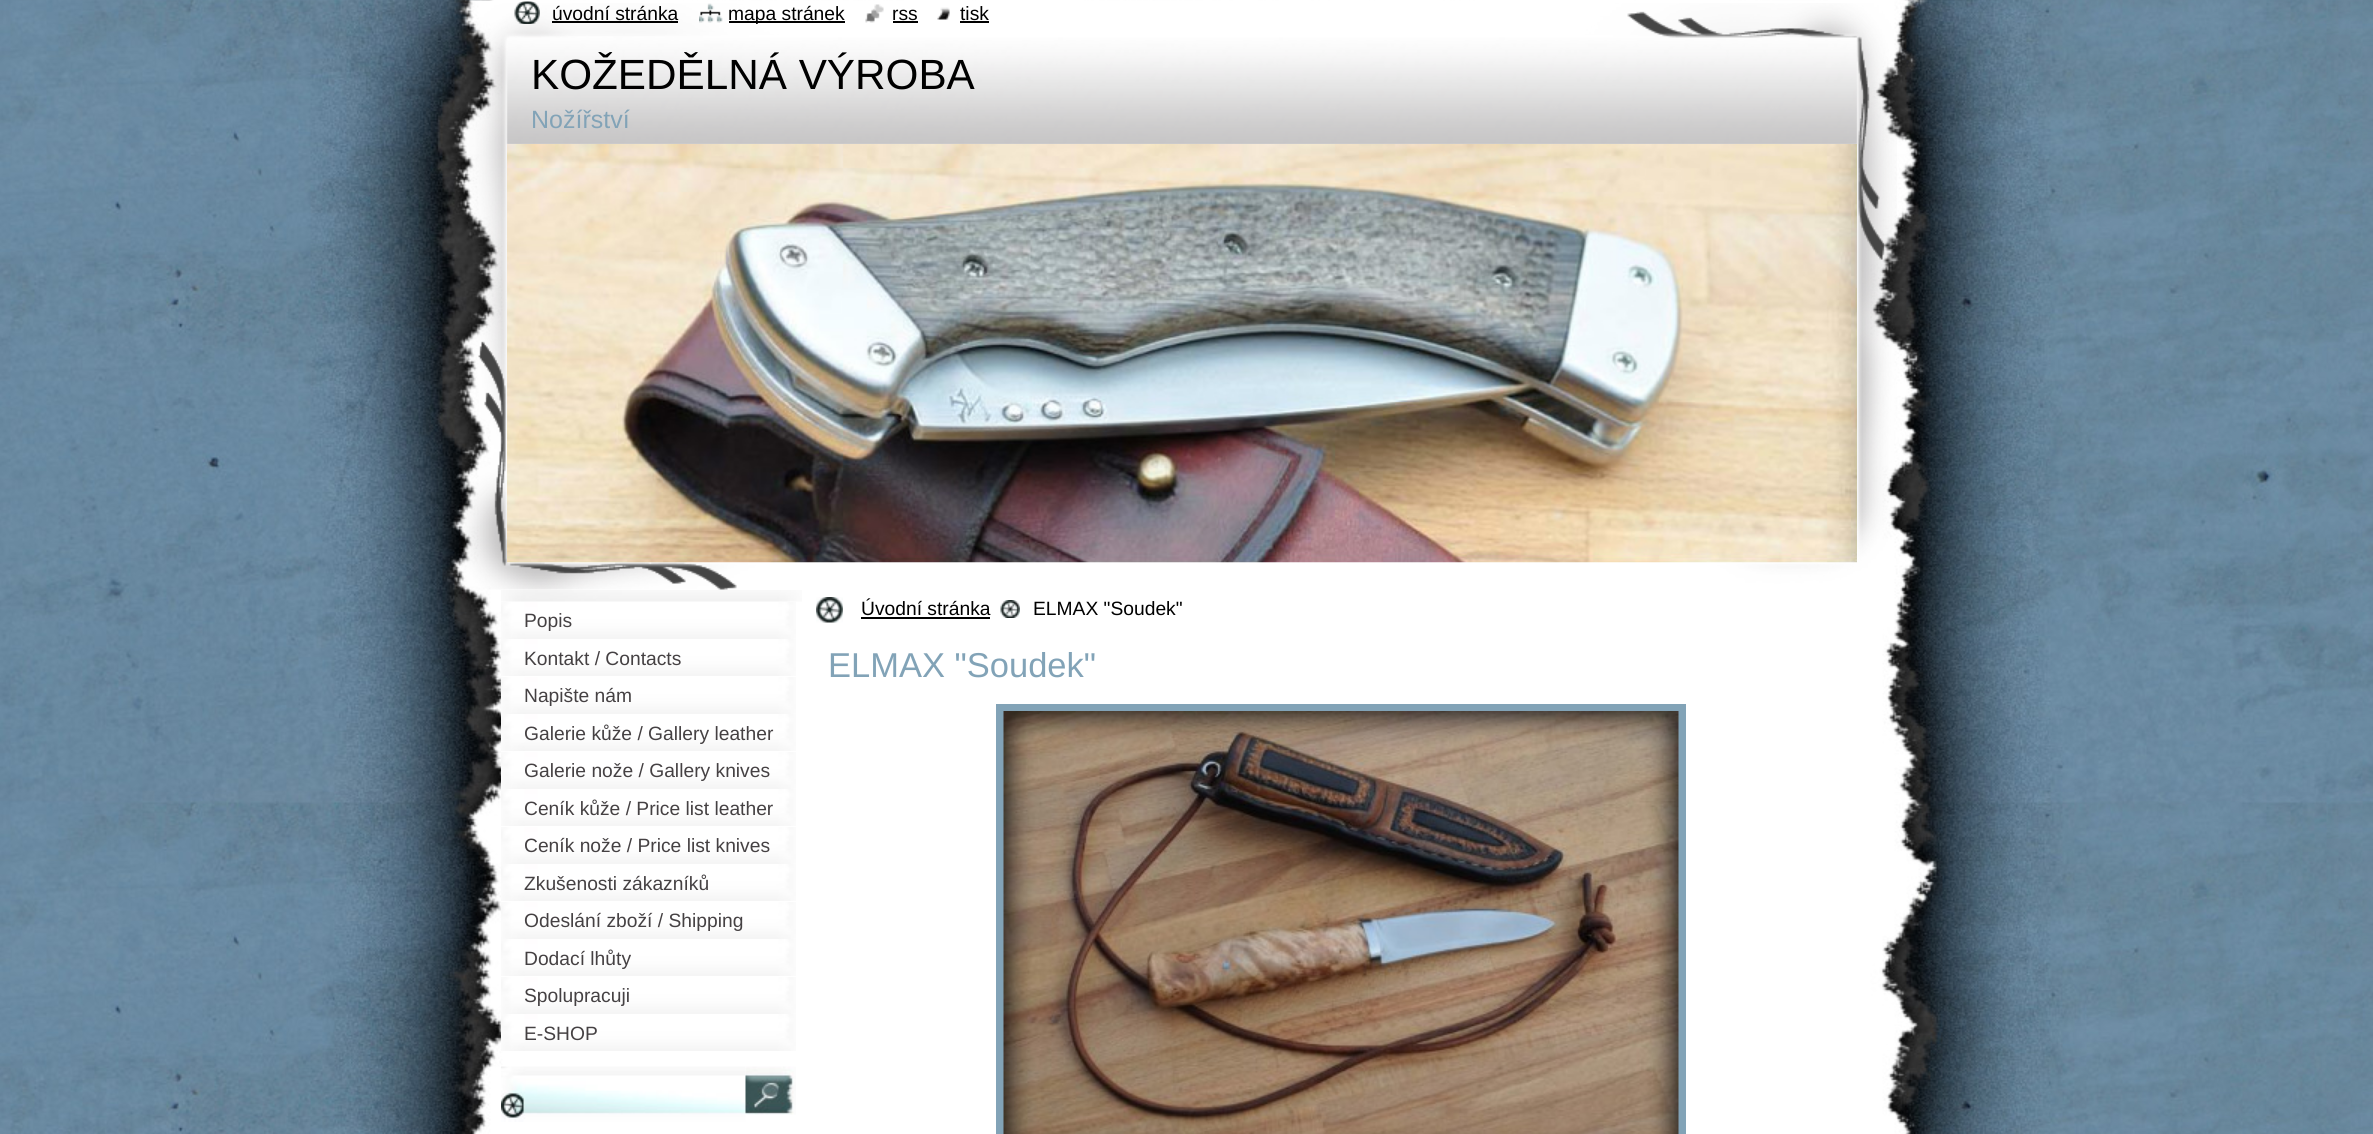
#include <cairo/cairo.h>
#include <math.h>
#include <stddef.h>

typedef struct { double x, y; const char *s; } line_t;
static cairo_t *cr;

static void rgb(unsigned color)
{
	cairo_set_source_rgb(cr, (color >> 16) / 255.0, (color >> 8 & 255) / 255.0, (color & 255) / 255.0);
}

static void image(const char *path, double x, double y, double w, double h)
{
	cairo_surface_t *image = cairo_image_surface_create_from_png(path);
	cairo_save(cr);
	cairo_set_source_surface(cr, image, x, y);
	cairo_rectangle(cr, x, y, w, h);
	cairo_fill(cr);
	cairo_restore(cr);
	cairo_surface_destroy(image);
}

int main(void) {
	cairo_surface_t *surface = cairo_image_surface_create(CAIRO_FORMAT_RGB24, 2373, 1134);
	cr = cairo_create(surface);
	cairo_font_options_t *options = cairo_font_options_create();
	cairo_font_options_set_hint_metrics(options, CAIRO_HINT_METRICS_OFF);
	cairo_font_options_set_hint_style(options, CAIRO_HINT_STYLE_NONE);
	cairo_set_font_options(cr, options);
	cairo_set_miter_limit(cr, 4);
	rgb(0xffffff);
	cairo_paint(cr);
	image("img/1.png", 0, 0, 2373, 1134);
	image("img/6.png", 462, 3, 1435, 587);
	image("img/2.png", 514, 1, 26, 23);
	rgb(0x000000);
	cairo_rectangle(cr, 552, 21, 126, 2);
	cairo_fill(cr);
	image("img/3.png", 699, 3, 24, 20);
	cairo_rectangle(cr, 729, 21, 116, 2);
	cairo_fill(cr);
	image("img/4.png", 865, 4, 19, 19);
	cairo_rectangle(cr, 893, 21, 25, 2);
	cairo_fill(cr);
	image("img/5.png", 937, 7, 13, 13);
	cairo_rectangle(cr, 960, 21, 29, 2);
	cairo_fill(cr);
	image("img/7.png", 507, 144, 1350, 419);
	image("img/8.png", 501, 590, 301, 12);
	image("img/9.png", 501, 602, 295, 37);
	image("img/10.png", 501, 639, 295, 37);
	image("img/9.png", 501, 677, 295, 37);
	image("img/10.png", 501, 714, 295, 37);
	image("img/9.png", 501, 752, 295, 37);
	image("img/10.png", 501, 789, 295, 37);
	image("img/9.png", 501, 827, 295, 37);
	image("img/10.png", 501, 864, 295, 37);
	image("img/9.png", 501, 902, 295, 37);
	image("img/10.png", 501, 939, 295, 37);
	image("img/9.png", 501, 977, 295, 37);
	image("img/10.png", 501, 1014, 295, 37);
	image("img/11.png", 501, 1066, 245, 56);
	image("img/12.png", 745, 1066, 51, 49);
	image("img/13.png", 816, 597, 27, 26);
	cairo_rectangle(cr, 861, 617, 129, 2);
	cairo_fill(cr);
	image("img/14.png", 1000, 600, 20, 18);
	cairo_rectangle(cr, 1000, 708, 682, 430);
	rgb(0x82a3b7);
	cairo_set_line_width(cr, 8);
	cairo_stroke(cr);
	image("img/15.png", 1003, 711, 676, 423);
	cairo_select_font_face(cr, "Liberation Sans", CAIRO_FONT_SLANT_NORMAL, CAIRO_FONT_WEIGHT_NORMAL);
	cairo_set_font_size(cr, 19.25);
	rgb(0x000000);
	{
		static const line_t items[] = {
			{552, 20, "úvodní stránka"},
			{728, 20, "mapa stránek"},
			{892, 20, "rss"},
			{960, 20, "tisk"},
		};
		for (size_t i = 0; i < sizeof items / sizeof *items; i++) {
			cairo_move_to(cr, items[i].x, items[i].y);
			cairo_show_text(cr, items[i].s);
		}
	}
	cairo_set_font_size(cr, 42.25);
	cairo_move_to(cr, 531, 89);
	cairo_show_text(cr, "KOŽEDĚLNÁ VÝROBA");
	cairo_set_font_size(cr, 25);
	rgb(0x82a3b7);
	cairo_move_to(cr, 531, 128);
	cairo_show_text(cr, "Nožířství");
	cairo_set_font_size(cr, 19.25);
	rgb(0x454143);
	{
		static const line_t items[] = {
			{524, 627, "Popis"},
			{524, 665, "Kontakt / Contacts"},
			{524, 702, "Napište nám"},
			{524, 740, "Galerie kůže / Gallery leather"},
			{524, 777, "Galerie nože / Gallery knives"},
			{524, 815, "Ceník kůže / Price list leather"},
			{524, 852, "Ceník nože / Price list knives"},
			{524, 890, "Zkušenosti zákazníků"},
			{524, 927, "Odeslání zboží / Shipping"},
			{524, 965, "Dodací lhůty"},
			{524, 1002, "Spolupracuji"},
			{524, 1040, "E-SHOP"},
		};
		for (size_t i = 0; i < sizeof items / sizeof *items; i++) {
			cairo_move_to(cr, items[i].x, items[i].y);
			cairo_show_text(cr, items[i].s);
		}
	}
	rgb(0x000000);
	cairo_move_to(cr, 861, 615);
	cairo_show_text(cr, "Úvodní stránka");
	cairo_move_to(cr, 1033, 615);
	cairo_show_text(cr, "ELMAX \"Soudek\"");
	cairo_set_font_size(cr, 34.5);
	rgb(0x82a3b7);
	cairo_move_to(cr, 828, 677);
	cairo_show_text(cr, "ELMAX \"Soudek\"");
	cairo_surface_write_to_png(surface, "page.png");
	cairo_font_options_destroy(options);
	cairo_destroy(cr);
	cairo_surface_destroy(surface);
	return 0;
}
